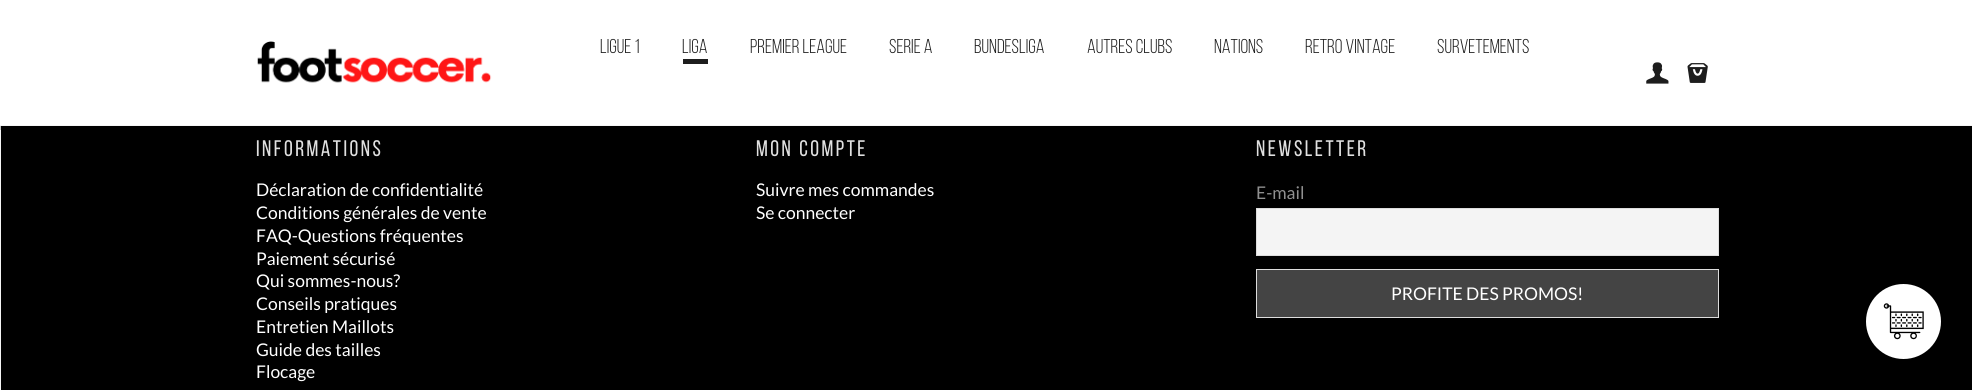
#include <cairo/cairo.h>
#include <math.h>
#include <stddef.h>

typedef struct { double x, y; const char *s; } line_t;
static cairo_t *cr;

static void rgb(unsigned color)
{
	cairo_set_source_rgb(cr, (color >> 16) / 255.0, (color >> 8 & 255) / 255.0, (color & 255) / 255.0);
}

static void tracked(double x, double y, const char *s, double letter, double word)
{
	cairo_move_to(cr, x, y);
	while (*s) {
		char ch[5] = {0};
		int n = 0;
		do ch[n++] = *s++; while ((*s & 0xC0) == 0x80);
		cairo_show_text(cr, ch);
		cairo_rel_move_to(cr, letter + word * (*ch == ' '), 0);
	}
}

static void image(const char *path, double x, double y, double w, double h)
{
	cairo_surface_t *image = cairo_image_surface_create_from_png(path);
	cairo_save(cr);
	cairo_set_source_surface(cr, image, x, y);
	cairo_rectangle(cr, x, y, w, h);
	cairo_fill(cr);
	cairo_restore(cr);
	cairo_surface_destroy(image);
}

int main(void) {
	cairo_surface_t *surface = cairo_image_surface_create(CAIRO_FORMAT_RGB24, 1972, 390);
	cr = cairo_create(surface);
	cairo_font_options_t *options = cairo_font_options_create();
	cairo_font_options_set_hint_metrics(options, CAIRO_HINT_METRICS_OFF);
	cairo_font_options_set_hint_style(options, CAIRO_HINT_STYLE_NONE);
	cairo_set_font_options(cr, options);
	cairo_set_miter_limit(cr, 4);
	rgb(0x000000);
	cairo_paint(cr);
	rgb(0xf5f5f5);
	cairo_rectangle(cr, 0, 126, 1, 264);
	cairo_fill(cr);
	cairo_set_source_rgba(cr, 0, 0, 0, 0.2);
	cairo_new_path(cr);
	cairo_move_to(cr, -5, 4);
	cairo_line_to(cr, -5, 130);
	cairo_line_to(cr, 1968, 130);
	cairo_line_to(cr, 1968, 126);
	cairo_line_to(cr, 0, 126);
	cairo_line_to(cr, 0, 4);
	cairo_close_path(cr);
	cairo_fill(cr);
	rgb(0xffffff);
	cairo_rectangle(cr, 0, 0, 1972, 125);
	cairo_fill(cr);
	rgb(0xf5f5f5);
	cairo_rectangle(cr, 0, 125, 1972, 1);
	cairo_fill(cr);
	image("img/1.png", 257, 41, 235, 42);
	rgb(0x1d1d1d);
	cairo_rectangle(cr, 683, 59, 25, 5);
	cairo_fill(cr);
	image("img/2.png", 1646, 62, 23, 22);
	image("img/3.png", 1687, 63, 21, 20);
	rgb(0xf4f4f4);
	cairo_rectangle(cr, 1256.5, 208.5, 462, 47);
	cairo_fill_preserve(cr);
	rgb(0xdddddd);
	cairo_set_line_width(cr, 1);
	cairo_stroke(cr);
	rgb(0x444444);
	cairo_rectangle(cr, 1256.5, 269.5, 462, 48);
	cairo_fill_preserve(cr);
	rgb(0xdddddd);
	cairo_stroke(cr);
	rgb(0xffffff);
	cairo_arc(cr, 1903.5, 321.5, 37.5, 0, 2 * M_PI);
	cairo_fill(cr);
	image("img/4.png", 1883, 303, 41, 37);
	cairo_select_font_face(cr, "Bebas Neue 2", CAIRO_FONT_SLANT_NORMAL, CAIRO_FONT_WEIGHT_NORMAL);
	cairo_set_font_size(cr, 20);
	rgb(0x1d1d1d);
	{
		static const line_t items[] = {
			{600, 53, "LIGUE 1"},
			{682, 53, "LIGA"},
			{750, 53, "PREMIER LEAGUE"},
			{889, 53, "SERIE A"},
			{974, 53, "BUNDESLIGA"},
			{1087, 53, "AUTRES CLUBS"},
			{1214, 53, "NATIONS"},
			{1305, 53, "RETRO VINTAGE"},
			{1437, 53, "SURVETEMENTS"},
		};
		for (size_t i = 0; i < sizeof items / sizeof *items; i++) {
			cairo_move_to(cr, items[i].x, items[i].y);
			cairo_show_text(cr, items[i].s);
		}
	}
	cairo_select_font_face(cr, "Bebas Neue", CAIRO_FONT_SLANT_NORMAL, CAIRO_FONT_WEIGHT_NORMAL);
	cairo_set_font_size(cr, 22.5);
	rgb(0xe0e0e0);
	tracked(256, 156, "INFORMATIONS", 2.5, 0);
	cairo_select_font_face(cr, "Lato", CAIRO_FONT_SLANT_NORMAL, CAIRO_FONT_WEIGHT_NORMAL);
	cairo_set_font_size(cr, 17.5);
	rgb(0xffffff);
	{
		static const line_t items[] = {
			{256, 196, "Déclaration de confidentialité"},
			{256, 219, "Conditions générales de vente"},
			{256, 242, "FAQ-Questions fréquentes"},
			{256, 265, "Paiement sécurisé"},
			{256, 287, "Qui sommes-nous?"},
			{256, 310, "Conseils pratiques"},
			{256, 333, "Entretien Maillots"},
			{256, 356, "Guide des tailles"},
			{256, 378, "Flocage"},
		};
		for (size_t i = 0; i < sizeof items / sizeof *items; i++) {
			cairo_move_to(cr, items[i].x, items[i].y);
			cairo_show_text(cr, items[i].s);
		}
	}
	cairo_select_font_face(cr, "Bebas Neue", CAIRO_FONT_SLANT_NORMAL, CAIRO_FONT_WEIGHT_NORMAL);
	cairo_set_font_size(cr, 22.5);
	rgb(0xe0e0e0);
	tracked(756, 156, "MON COMPTE", 2.5, 0);
	cairo_select_font_face(cr, "Lato", CAIRO_FONT_SLANT_NORMAL, CAIRO_FONT_WEIGHT_NORMAL);
	cairo_set_font_size(cr, 17.5);
	rgb(0xffffff);
	cairo_move_to(cr, 756, 196);
	cairo_show_text(cr, "Suivre mes commandes");
	cairo_move_to(cr, 756, 219);
	cairo_show_text(cr, "Se connecter");
	cairo_select_font_face(cr, "Bebas Neue", CAIRO_FONT_SLANT_NORMAL, CAIRO_FONT_WEIGHT_NORMAL);
	cairo_set_font_size(cr, 22.5);
	rgb(0xe0e0e0);
	tracked(1256, 156, "NEWSLETTER", 2.5, 0);
	cairo_select_font_face(cr, "Lato", CAIRO_FONT_SLANT_NORMAL, CAIRO_FONT_WEIGHT_NORMAL);
	cairo_set_font_size(cr, 17.5);
	rgb(0x909090);
	cairo_move_to(cr, 1256, 199);
	cairo_show_text(cr, "E-mail");
	rgb(0xffffff);
	cairo_move_to(cr, 1391, 300);
	cairo_show_text(cr, "PROFITE DES PROMOS!");
	cairo_surface_write_to_png(surface, "page.png");
	cairo_font_options_destroy(options);
	cairo_destroy(cr);
	cairo_surface_destroy(surface);
	return 0;
}
